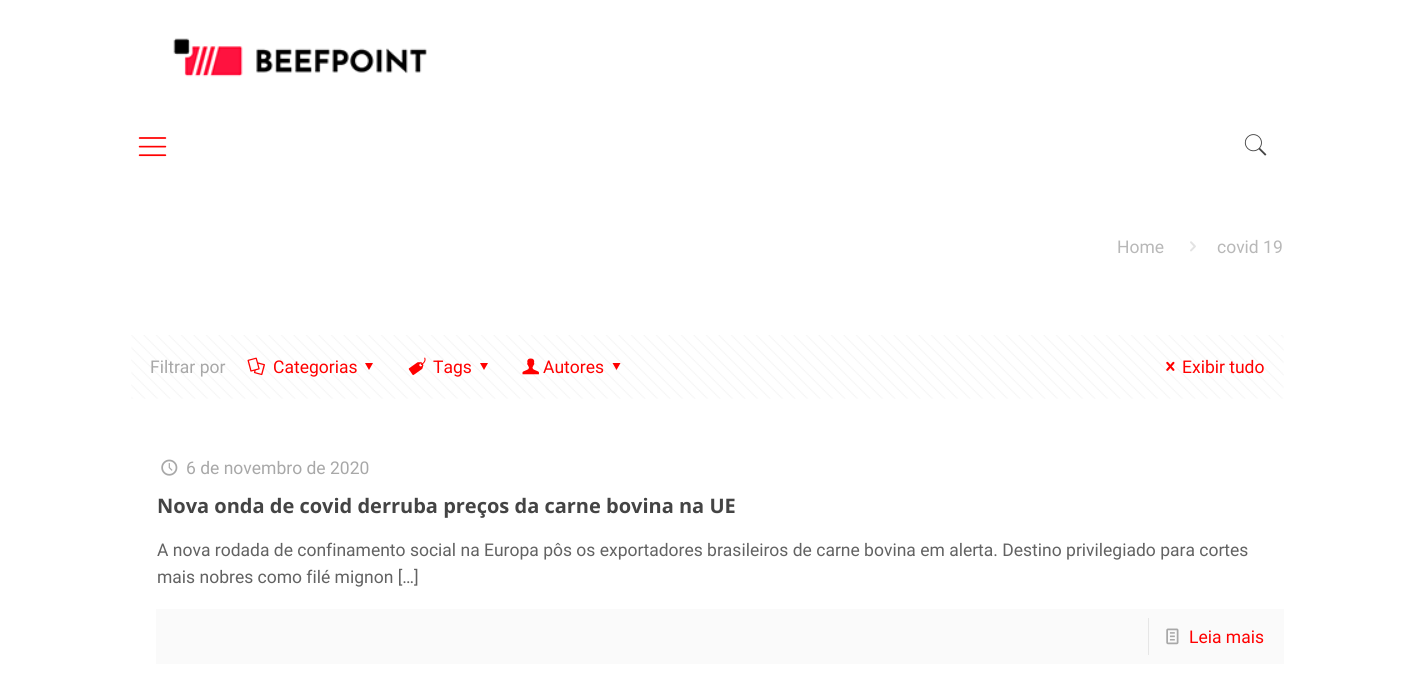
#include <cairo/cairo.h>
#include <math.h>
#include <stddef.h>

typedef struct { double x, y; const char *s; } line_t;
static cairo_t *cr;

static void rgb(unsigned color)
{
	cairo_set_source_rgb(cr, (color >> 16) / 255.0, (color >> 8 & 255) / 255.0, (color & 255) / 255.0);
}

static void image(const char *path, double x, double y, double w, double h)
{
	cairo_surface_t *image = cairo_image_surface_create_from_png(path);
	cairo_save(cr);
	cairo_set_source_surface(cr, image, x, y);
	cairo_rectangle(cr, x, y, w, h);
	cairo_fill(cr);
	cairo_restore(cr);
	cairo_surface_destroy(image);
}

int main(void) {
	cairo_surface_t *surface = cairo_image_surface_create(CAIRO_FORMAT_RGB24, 1415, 684);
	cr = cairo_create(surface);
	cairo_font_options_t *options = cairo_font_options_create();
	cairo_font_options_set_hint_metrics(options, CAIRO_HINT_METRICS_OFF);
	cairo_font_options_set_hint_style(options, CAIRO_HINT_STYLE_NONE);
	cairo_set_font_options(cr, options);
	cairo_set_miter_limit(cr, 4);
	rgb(0xffffff);
	cairo_paint(cr);
	image("img/1.png", 173, 38, 254, 39);
	image("img/2.png", 138, 137, 29, 20);
	image("img/3.png", 1244, 134, 23, 22);
	image("img/4.png", 1190, 241, 6, 11);
	image("img/5.png", 131, 335, 1153, 64);
	image("img/6.png", 247, 357, 18, 19);
	rgb(0xff0000);
	cairo_new_path(cr);
	cairo_move_to(cr, 373, 363);
	cairo_line_to(cr, 369, 370);
	cairo_line_to(cr, 365, 363);
	cairo_close_path(cr);
	cairo_fill(cr);
	image("img/7.png", 408, 357, 18, 19);
	cairo_new_path(cr);
	cairo_move_to(cr, 488, 363);
	cairo_line_to(cr, 484, 370);
	cairo_line_to(cr, 480, 363);
	cairo_close_path(cr);
	cairo_fill(cr);
	image("img/8.png", 522, 358, 17, 17);
	cairo_new_path(cr);
	cairo_move_to(cr, 620.5, 363);
	cairo_line_to(cr, 616.5, 370);
	cairo_line_to(cr, 612.5, 363);
	cairo_close_path(cr);
	cairo_fill(cr);
	image("img/9.png", 1166, 361, 9, 10);
	image("img/10.png", 161, 459, 17, 17);
	rgb(0xfafafa);
	cairo_rectangle(cr, 156, 609, 1128, 55);
	cairo_fill(cr);
	rgb(0xe6e6e6);
	cairo_rectangle(cr, 1148, 618, 1, 37);
	cairo_fill(cr);
	image("img/11.png", 1166, 628, 13, 17);
	cairo_select_font_face(cr, "Roboto", CAIRO_FONT_SLANT_NORMAL, CAIRO_FONT_WEIGHT_NORMAL);
	cairo_set_font_size(cr, 17.5);
	rgb(0xb8b8b8);
	cairo_move_to(cr, 1117, 253);
	cairo_show_text(cr, "Home");
	cairo_move_to(cr, 1217, 253);
	cairo_show_text(cr, "covid 19");
	rgb(0xa8a8a8);
	cairo_move_to(cr, 150, 373);
	cairo_show_text(cr, "Filtrar por");
	rgb(0xff0000);
	{
		static const line_t items[] = {
			{273, 373, "Categorias"},
			{433, 373, "Tags"},
			{543, 373, "Autores"},
			{1182, 373, "Exibir tudo"},
		};
		for (size_t i = 0; i < sizeof items / sizeof *items; i++) {
			cairo_move_to(cr, items[i].x, items[i].y);
			cairo_show_text(cr, items[i].s);
		}
	}
	rgb(0xa8a8a8);
	cairo_move_to(cr, 186, 474);
	cairo_show_text(cr, "6 de novembro de 2020");
	cairo_select_font_face(cr, "Open Sans", CAIRO_FONT_SLANT_NORMAL, CAIRO_FONT_WEIGHT_BOLD);
	cairo_set_font_size(cr, 20);
	rgb(0x444444);
	cairo_move_to(cr, 157, 513);
	cairo_show_text(cr, "Nova onda de covid derruba preços da carne bovina na UE");
	cairo_select_font_face(cr, "Roboto", CAIRO_FONT_SLANT_NORMAL, CAIRO_FONT_WEIGHT_NORMAL);
	cairo_set_font_size(cr, 17.5);
	rgb(0x626262);
	cairo_move_to(cr, 157, 556);
	cairo_show_text(cr, "A nova rodada de confinamento social na Europa pôs os exportadores brasileiros de carne bovina em alerta. Destino privilegiado para cortes");
	cairo_move_to(cr, 157, 583);
	cairo_show_text(cr, "mais nobres como filé mignon […]");
	rgb(0xff0000);
	cairo_move_to(cr, 1189, 643);
	cairo_show_text(cr, "Leia mais");
	cairo_surface_write_to_png(surface, "page.png");
	cairo_font_options_destroy(options);
	cairo_destroy(cr);
	cairo_surface_destroy(surface);
	return 0;
}
